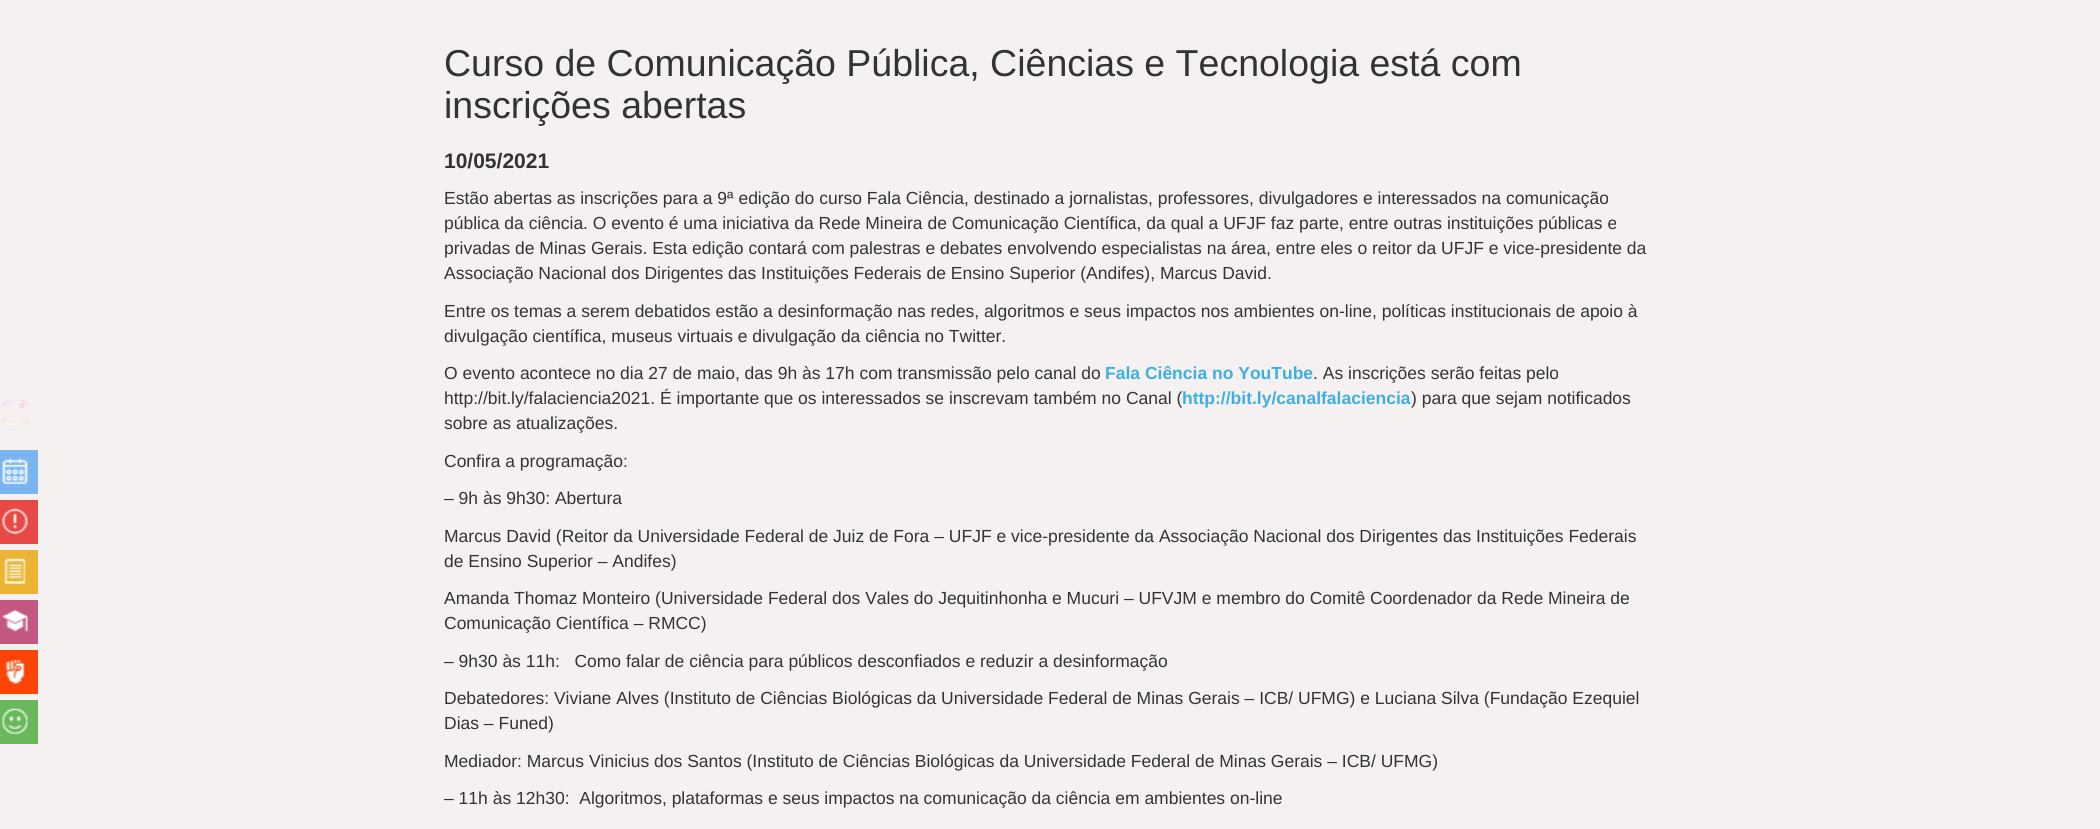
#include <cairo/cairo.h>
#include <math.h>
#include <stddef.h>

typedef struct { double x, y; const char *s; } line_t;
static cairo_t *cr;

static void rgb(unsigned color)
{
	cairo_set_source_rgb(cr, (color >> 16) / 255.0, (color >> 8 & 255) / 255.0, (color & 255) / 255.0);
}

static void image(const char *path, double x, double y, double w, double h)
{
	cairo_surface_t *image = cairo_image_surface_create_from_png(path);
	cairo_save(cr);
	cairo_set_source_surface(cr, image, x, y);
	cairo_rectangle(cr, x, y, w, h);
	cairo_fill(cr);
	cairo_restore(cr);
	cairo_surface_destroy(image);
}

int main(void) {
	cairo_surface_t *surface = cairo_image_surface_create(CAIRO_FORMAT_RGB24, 2100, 829);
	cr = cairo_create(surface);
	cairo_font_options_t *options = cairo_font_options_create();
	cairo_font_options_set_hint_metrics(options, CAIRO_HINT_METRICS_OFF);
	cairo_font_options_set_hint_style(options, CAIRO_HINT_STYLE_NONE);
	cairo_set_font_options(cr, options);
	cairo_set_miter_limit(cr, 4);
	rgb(0xf6f1f1);
	cairo_paint(cr);
	image("img/1.png", 2, 400, 26, 25);
	rgb(0x7ab5f0);
	cairo_rectangle(cr, 0, 450, 38, 44);
	cairo_fill(cr);
	image("img/2.png", 2, 458, 26, 26);
	rgb(0xe74946);
	cairo_rectangle(cr, 0, 500, 38, 44);
	cairo_fill(cr);
	image("img/3.png", 2, 508, 26, 26);
	rgb(0xebb433);
	cairo_rectangle(cr, 0, 550, 38, 44);
	cairo_fill(cr);
	image("img/4.png", 4, 558, 22, 26);
	rgb(0xc55882);
	cairo_rectangle(cr, 0, 600, 38, 44);
	cairo_fill(cr);
	image("img/5.png", 2, 609, 26, 23);
	rgb(0xfc4408);
	cairo_rectangle(cr, 0, 650, 38, 44);
	cairo_fill(cr);
	image("img/6.png", 5, 659, 20, 25);
	rgb(0x69b85c);
	cairo_rectangle(cr, 0, 700, 38, 44);
	cairo_fill(cr);
	image("img/7.png", 2, 708, 26, 26);
	cairo_select_font_face(cr, "Liberation Sans", CAIRO_FONT_SLANT_NORMAL, CAIRO_FONT_WEIGHT_NORMAL);
	cairo_set_font_size(cr, 37.5);
	rgb(0x333333);
	cairo_move_to(cr, 444, 76);
	cairo_show_text(cr, "Curso de Comunicação Pública, Ciências e Tecnologia está com");
	cairo_move_to(cr, 444, 118);
	cairo_show_text(cr, "inscrições abertas");
	cairo_select_font_face(cr, "Liberation Sans", CAIRO_FONT_SLANT_NORMAL, CAIRO_FONT_WEIGHT_BOLD);
	cairo_set_font_size(cr, 21);
	cairo_move_to(cr, 444, 168);
	cairo_show_text(cr, "10/05/2021");
	cairo_select_font_face(cr, "Liberation Sans", CAIRO_FONT_SLANT_NORMAL, CAIRO_FONT_WEIGHT_NORMAL);
	cairo_set_font_size(cr, 17.5);
	{
		static const line_t items[] = {
			{444, 204, "Estão abertas as inscrições para a 9ª edição do curso Fala Ciência, destinado a jornalistas, professores, divulgadores e interessados na comunicação"},
			{444, 229, "pública da ciência. O evento é uma iniciativa da Rede Mineira de Comunicação Científica, da qual a UFJF faz parte, entre outras instituições públicas e"},
			{444, 254, "privadas de Minas Gerais. Esta edição contará com palestras e debates envolvendo especialistas na área, entre eles o reitor da UFJF e vice-presidente da"},
			{444, 279, "Associação Nacional dos Dirigentes das Instituições Federais de Ensino Superior (Andifes), Marcus David."},
			{444, 317, "Entre os temas a serem debatidos estão a desinformação nas redes, algoritmos e seus impactos nos ambientes on-line, políticas institucionais de apoio à"},
			{444, 342, "divulgação científica, museus virtuais e divulgação da ciência no Twitter."},
			{444, 379, "O evento acontece no dia 27 de maio, das 9h às 17h com transmissão pelo canal do"},
		};
		for (size_t i = 0; i < sizeof items / sizeof *items; i++) {
			cairo_move_to(cr, items[i].x, items[i].y);
			cairo_show_text(cr, items[i].s);
		}
	}
	cairo_select_font_face(cr, "Liberation Sans", CAIRO_FONT_SLANT_NORMAL, CAIRO_FONT_WEIGHT_BOLD);
	rgb(0x3eafe3);
	cairo_move_to(cr, 1105, 379);
	cairo_show_text(cr, "Fala Ciência no YouTube");
	cairo_select_font_face(cr, "Liberation Sans", CAIRO_FONT_SLANT_NORMAL, CAIRO_FONT_WEIGHT_NORMAL);
	rgb(0x333333);
	cairo_move_to(cr, 1313, 379);
	cairo_show_text(cr, ". As inscrições serão feitas pelo");
	cairo_move_to(cr, 444, 404);
	cairo_show_text(cr, "http://bit.ly/falaciencia2021. É importante que os interessados se inscrevam também no Canal (");
	cairo_select_font_face(cr, "Liberation Sans", CAIRO_FONT_SLANT_NORMAL, CAIRO_FONT_WEIGHT_BOLD);
	rgb(0x3eafe3);
	cairo_move_to(cr, 1182, 404);
	cairo_show_text(cr, "http://bit.ly/canalfalaciencia");
	cairo_select_font_face(cr, "Liberation Sans", CAIRO_FONT_SLANT_NORMAL, CAIRO_FONT_WEIGHT_NORMAL);
	rgb(0x333333);
	{
		static const line_t items[] = {
			{1411, 404, ") para que sejam notificados"},
			{444, 429, "sobre as atualizações."},
			{444, 467, "Confira a programação:"},
			{444, 504, "– 9h às 9h30: Abertura"},
			{444, 542, "Marcus David (Reitor da Universidade Federal de Juiz de Fora – UFJF e vice-presidente da Associação Nacional dos Dirigentes das Instituições Federais"},
			{444, 567, "de Ensino Superior – Andifes)"},
			{444, 604, "Amanda Thomaz Monteiro (Universidade Federal dos Vales do Jequitinhonha e Mucuri – UFVJM e membro do Comitê Coordenador da Rede Mineira de"},
			{444, 629, "Comunicação Científica – RMCC)"},
			{444, 667, "– 9h30 às 11h:   Como falar de ciência para públicos desconfiados e reduzir a desinformação"},
			{444, 704, "Debatedores: Viviane Alves (Instituto de Ciências Biológicas da Universidade Federal de Minas Gerais – ICB/ UFMG) e Luciana Silva (Fundação Ezequiel"},
			{444, 729, "Dias – Funed)"},
			{444, 767, "Mediador: Marcus Vinicius dos Santos (Instituto de Ciências Biológicas da Universidade Federal de Minas Gerais – ICB/ UFMG)"},
			{444, 804, "– 11h às 12h30:  Algoritmos, plataformas e seus impactos na comunicação da ciência em ambientes on-line"},
		};
		for (size_t i = 0; i < sizeof items / sizeof *items; i++) {
			cairo_move_to(cr, items[i].x, items[i].y);
			cairo_show_text(cr, items[i].s);
		}
	}
	cairo_surface_write_to_png(surface, "page.png");
	cairo_font_options_destroy(options);
	cairo_destroy(cr);
	cairo_surface_destroy(surface);
	return 0;
}
